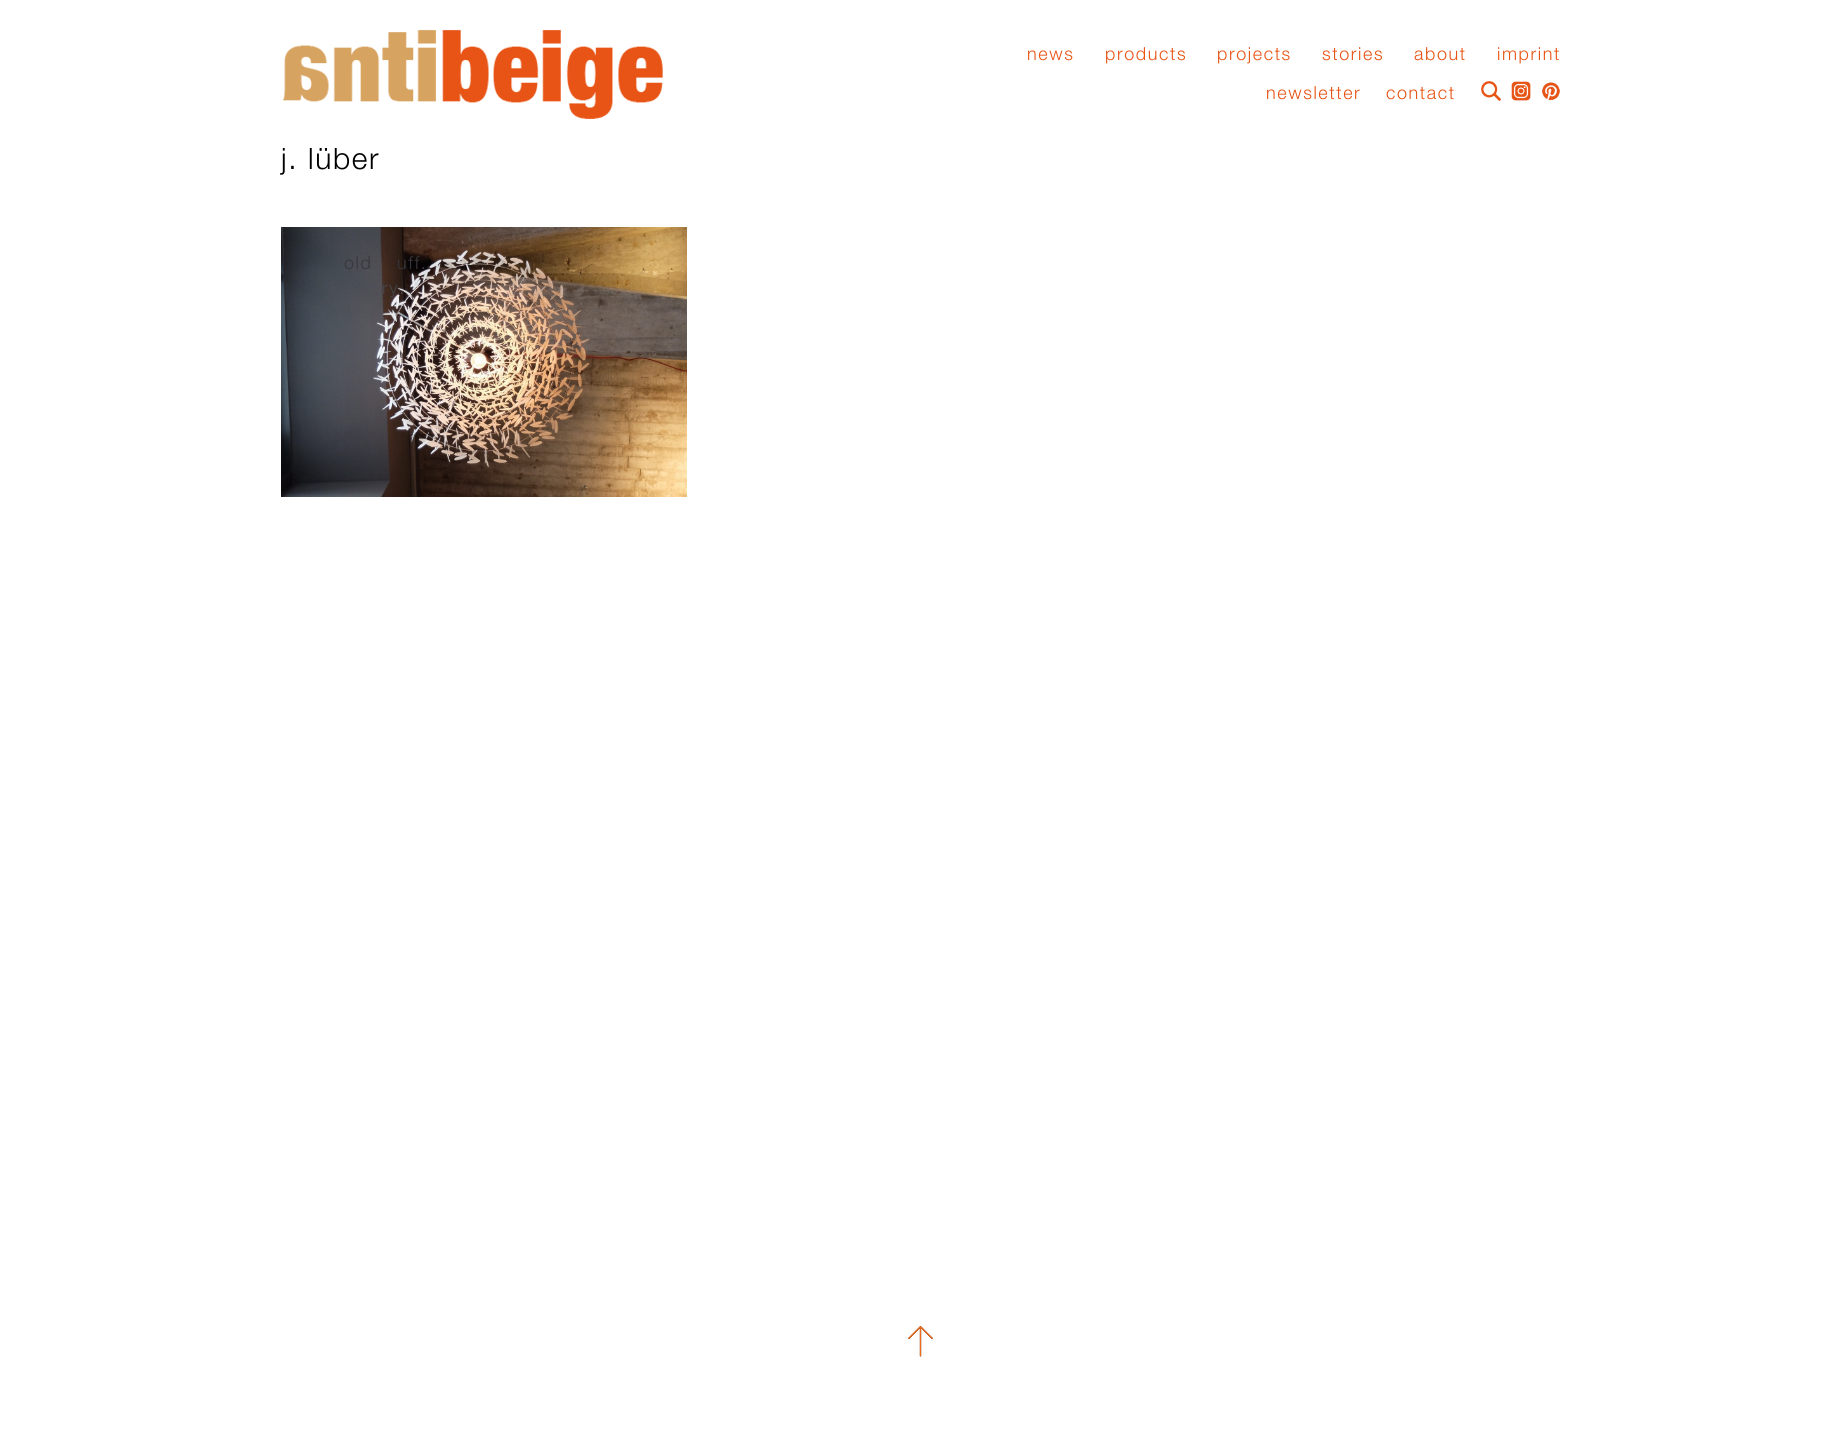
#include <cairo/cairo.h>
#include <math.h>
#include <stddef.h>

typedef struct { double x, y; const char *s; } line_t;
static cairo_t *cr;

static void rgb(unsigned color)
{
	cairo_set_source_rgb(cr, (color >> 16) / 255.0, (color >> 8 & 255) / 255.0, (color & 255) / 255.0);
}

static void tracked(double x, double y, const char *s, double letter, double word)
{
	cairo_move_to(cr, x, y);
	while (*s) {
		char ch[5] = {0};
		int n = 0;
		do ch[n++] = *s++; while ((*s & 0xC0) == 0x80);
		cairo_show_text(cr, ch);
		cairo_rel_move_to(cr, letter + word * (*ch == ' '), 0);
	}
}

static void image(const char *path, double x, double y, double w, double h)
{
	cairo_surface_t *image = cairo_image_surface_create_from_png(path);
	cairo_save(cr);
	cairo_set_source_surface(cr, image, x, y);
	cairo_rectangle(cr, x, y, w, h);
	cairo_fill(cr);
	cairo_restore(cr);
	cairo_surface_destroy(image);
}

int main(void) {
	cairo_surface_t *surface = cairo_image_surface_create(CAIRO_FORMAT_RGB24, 1841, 1456);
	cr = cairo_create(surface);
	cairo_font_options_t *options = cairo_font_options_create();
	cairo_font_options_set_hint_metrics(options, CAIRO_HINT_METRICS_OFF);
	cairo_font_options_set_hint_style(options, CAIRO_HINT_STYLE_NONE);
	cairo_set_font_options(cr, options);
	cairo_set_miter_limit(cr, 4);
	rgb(0xffffff);
	cairo_paint(cr);
	image("img/1.png", 282, 29, 381, 91);
	image("img/2.png", 1481, 81, 20, 20);
	image("img/3.png", 1511, 81, 20, 20);
	image("img/4.png", 1542, 82, 18, 19);
	image("img/5.png", 281, 227, 406, 270);
	image("img/6.png", 908, 1326, 25, 31);
	cairo_select_font_face(cr, "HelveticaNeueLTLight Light", CAIRO_FONT_SLANT_NORMAL, CAIRO_FONT_WEIGHT_NORMAL);
	cairo_set_font_size(cr, 18);
	rgb(0xe85415);
	{
		static const line_t items[] = {
			{1027, 60, "news"},
			{1105, 60, "products"},
			{1217, 60, "projects"},
			{1322, 60, "stories"},
			{1414, 60, "about"},
			{1497, 60, "imprint"},
			{1266, 99, "newsletter"},
			{1386, 99, "contact"},
		};
		for (size_t i = 0; i < sizeof items / sizeof *items; i++) {
			tracked(items[i].x, items[i].y, items[i].s, 1.6, 0);
		}
	}
	cairo_set_font_size(cr, 30);
	rgb(0x000000);
	tracked(281, 169, "j. lüber", 1.6, 0);
	rgb(0xffffff);
	cairo_rectangle(cr, 282, 147, 55, 1);
	cairo_fill(cr);
	cairo_set_font_size(cr, 18);
	rgb(0x38363a);
	tracked(344, 269, "old", 1.6, 0);
	tracked(397, 269, "uff.", 1.6, 0);
	rgb(0x454449);
	tracked(382, 294, "ry.", 1.6, 0);
	cairo_surface_write_to_png(surface, "page.png");
	cairo_font_options_destroy(options);
	cairo_destroy(cr);
	cairo_surface_destroy(surface);
	return 0;
}
